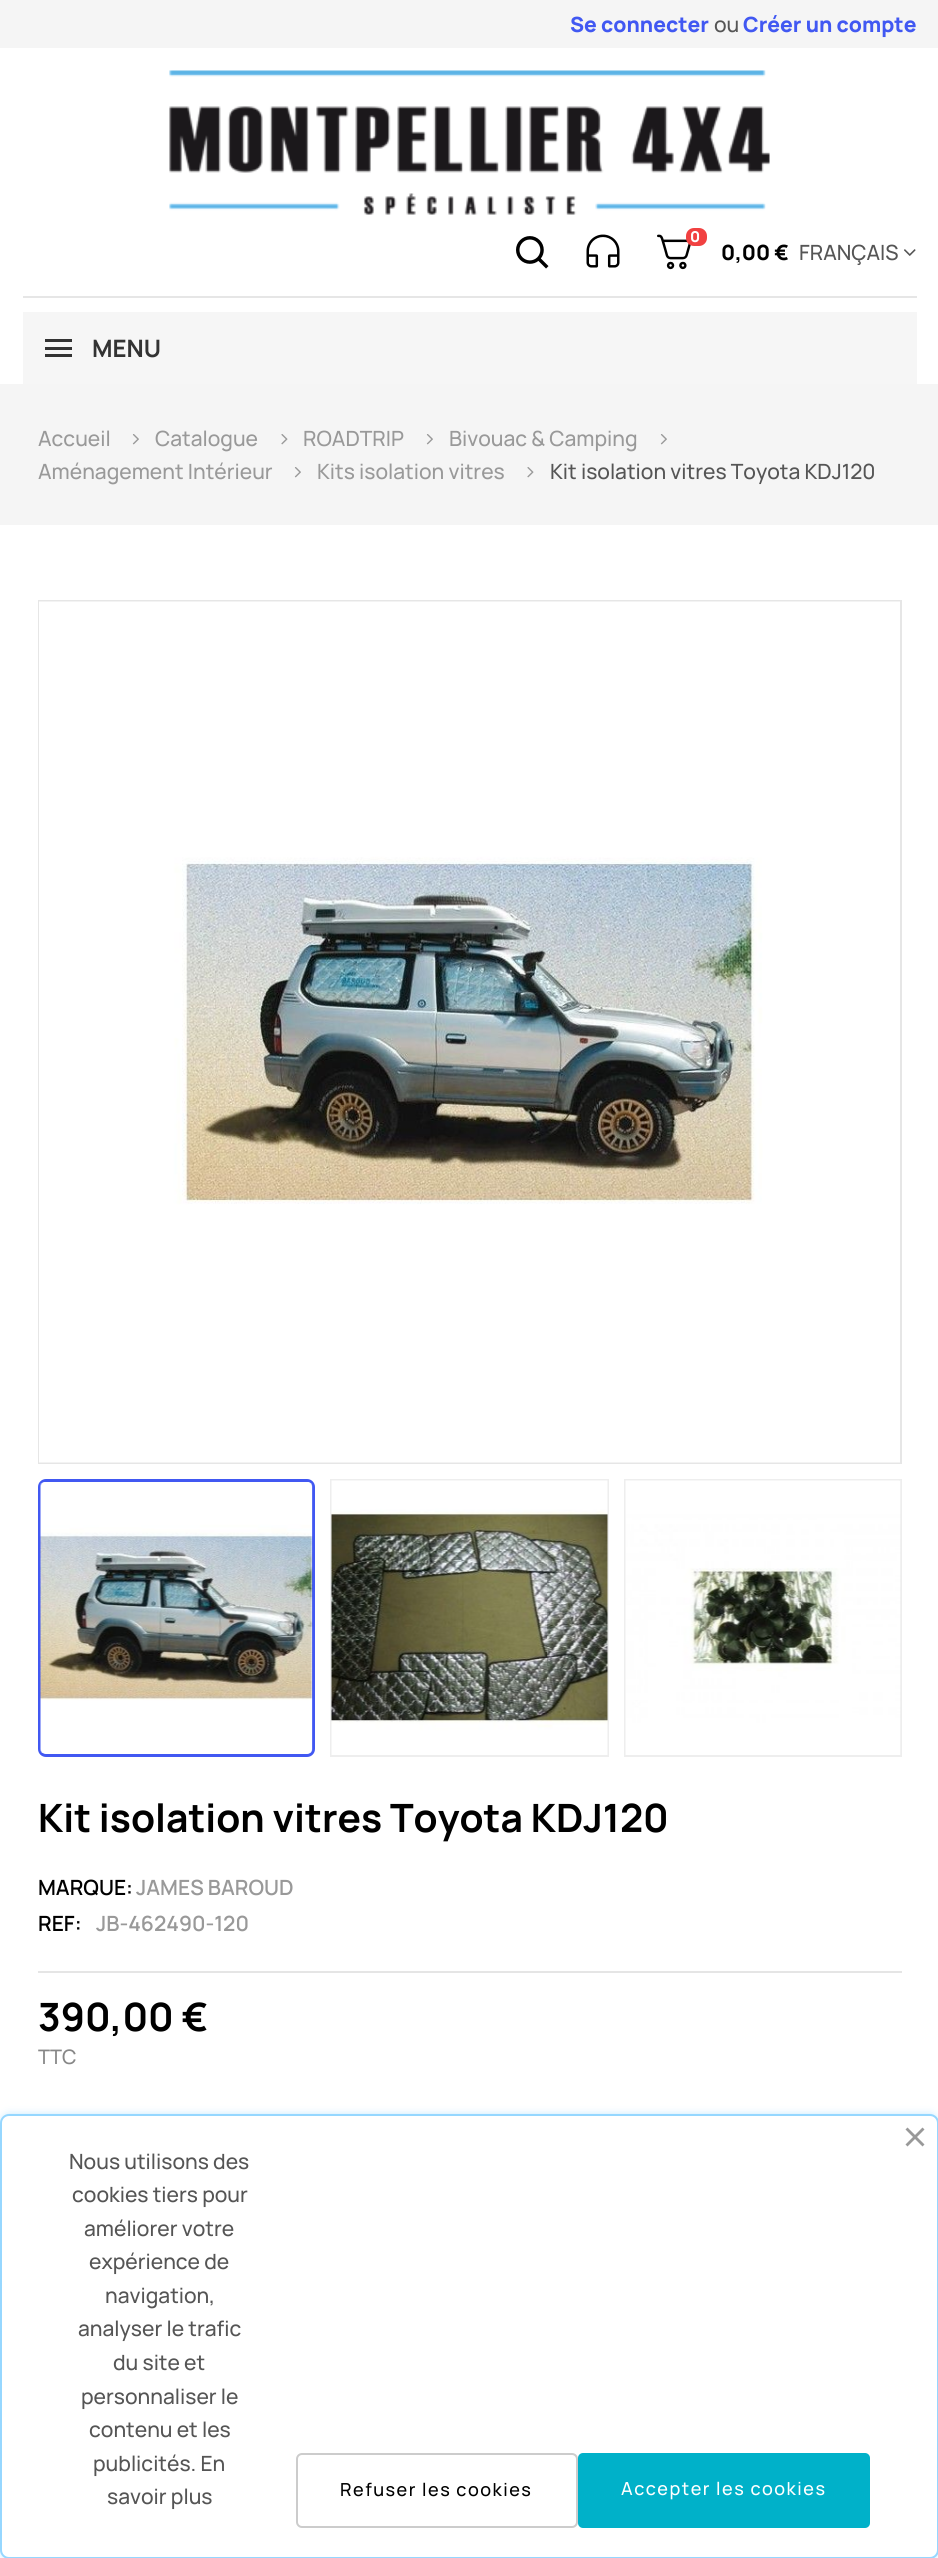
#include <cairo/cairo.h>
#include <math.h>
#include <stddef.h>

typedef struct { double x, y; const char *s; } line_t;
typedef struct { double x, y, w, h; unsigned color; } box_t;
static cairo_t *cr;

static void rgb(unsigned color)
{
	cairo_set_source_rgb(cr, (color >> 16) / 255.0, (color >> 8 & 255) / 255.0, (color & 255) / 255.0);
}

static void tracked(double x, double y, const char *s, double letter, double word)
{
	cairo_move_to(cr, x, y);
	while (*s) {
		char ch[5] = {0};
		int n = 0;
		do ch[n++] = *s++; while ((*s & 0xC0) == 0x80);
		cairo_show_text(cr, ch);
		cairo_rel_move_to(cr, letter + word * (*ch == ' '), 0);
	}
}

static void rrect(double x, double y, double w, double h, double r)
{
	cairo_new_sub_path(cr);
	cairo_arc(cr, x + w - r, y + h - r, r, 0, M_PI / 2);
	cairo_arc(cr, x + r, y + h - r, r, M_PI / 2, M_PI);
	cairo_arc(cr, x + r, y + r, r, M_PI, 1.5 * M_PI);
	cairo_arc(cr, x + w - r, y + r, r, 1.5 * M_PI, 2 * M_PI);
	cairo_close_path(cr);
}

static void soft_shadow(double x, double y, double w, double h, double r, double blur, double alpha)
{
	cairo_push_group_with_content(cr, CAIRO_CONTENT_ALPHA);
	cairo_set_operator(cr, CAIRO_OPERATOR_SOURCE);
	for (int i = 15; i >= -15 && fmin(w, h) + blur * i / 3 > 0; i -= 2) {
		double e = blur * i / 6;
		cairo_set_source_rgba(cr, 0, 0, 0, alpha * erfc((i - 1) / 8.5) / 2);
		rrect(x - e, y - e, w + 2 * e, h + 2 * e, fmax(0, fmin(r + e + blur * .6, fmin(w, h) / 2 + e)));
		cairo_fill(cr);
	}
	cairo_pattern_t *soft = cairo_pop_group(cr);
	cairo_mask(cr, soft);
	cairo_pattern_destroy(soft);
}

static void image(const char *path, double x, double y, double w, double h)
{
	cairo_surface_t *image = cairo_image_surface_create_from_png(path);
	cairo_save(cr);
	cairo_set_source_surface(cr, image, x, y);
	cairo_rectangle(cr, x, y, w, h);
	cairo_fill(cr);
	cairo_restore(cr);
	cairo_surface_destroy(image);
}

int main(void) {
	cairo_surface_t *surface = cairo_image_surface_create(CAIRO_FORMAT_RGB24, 938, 2558);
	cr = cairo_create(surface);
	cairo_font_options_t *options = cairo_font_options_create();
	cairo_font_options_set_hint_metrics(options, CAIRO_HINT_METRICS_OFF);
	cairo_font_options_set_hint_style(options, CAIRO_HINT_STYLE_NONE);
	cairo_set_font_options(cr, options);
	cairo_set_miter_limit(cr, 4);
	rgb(0xffffff);
	cairo_paint(cr);
	rgb(0xf5f5f5);
	cairo_rectangle(cr, 0, 0, 938, 48);
	cairo_fill(cr);
	rgb(0xe6e6e6);
	cairo_rectangle(cr, 23, 296, 894, 2);
	cairo_fill(cr);
	image("img/1.png", 169, 70, 601, 145);
	image("img/2.png", 516, 236, 33, 33);
	image("img/3.png", 586, 234, 34, 34);
	image("img/4.png", 657, 234, 34, 36);
	rgb(0xf14141);
	rrect(686, 228, 21, 18, 8);
	cairo_fill(cr);
	image("img/5.png", 904, 249, 12, 7);
	{
		static const box_t items[] = {
			{23, 312, 894, 72, 0xf6f6f6},
			{45, 339, 27, 3, 0x333333},
			{45, 347, 27, 3, 0x333333},
			{45, 354, 27, 3, 0x333333},
			{0, 384, 938, 141, 0xf5f5f5},
		};
		for (size_t i = 0; i < sizeof items / sizeof *items; i++) {
			rgb(items[i].color);
			cairo_rectangle(cr, items[i].x, items[i].y, items[i].w, items[i].h);
			cairo_fill(cr);
		}
	}
	image("img/6.png", 132, 434, 7, 11);
	image("img/7.png", 281, 434, 7, 11);
	image("img/6.png", 426, 434, 7, 11);
	image("img/6.png", 660, 434, 7, 11);
	image("img/6.png", 294, 467, 7, 11);
	image("img/7.png", 527, 467, 7, 11);
	cairo_rectangle(cr, 39, 601, 862, 862);
	rgb(0xe6e6e6);
	cairo_stroke(cr);
	image("img/8.png", 39, 601, 861, 862);
	rrect(39.5, 1480.5, 274, 275, 6.5);
	rgb(0x4158f2);
	cairo_set_line_width(cr, 3);
	cairo_stroke(cr);
	image("img/9.png", 40, 1482, 273, 272);
	cairo_rectangle(cr, 331, 1480, 277, 276);
	rgb(0xeeeeee);
	cairo_set_line_width(cr, 2);
	cairo_stroke(cr);
	image("img/10.png", 331, 1480, 277, 275);
	cairo_rectangle(cr, 625, 1480, 276, 276);
	cairo_stroke(cr);
	image("img/11.png", 625, 1480, 276, 275);
	rgb(0xe5e5e5);
	cairo_rectangle(cr, 38, 1971, 864, 2);
	cairo_fill(cr);
	rgb(0x96d7ff);
	soft_shadow(3, 2117, 933, 439, 6, 5, 1);
	rgb(0xffffff);
	rrect(1, 2115, 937, 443, 8);
	cairo_fill_preserve(cr);
	rgb(0x96d7ff);
	cairo_stroke(cr);
	rgb(0x999999);
	cairo_new_path(cr);
	cairo_move_to(cr, 905.5, 2144.5);
	cairo_line_to(cr, 922.5, 2127.5);
	cairo_line_to(cr, 924.5, 2129.5);
	cairo_line_to(cr, 907.5, 2146.5);
	cairo_close_path(cr);
	cairo_fill(cr);
	cairo_new_path(cr);
	cairo_move_to(cr, 907.5, 2127.5);
	cairo_line_to(cr, 924.5, 2144.5);
	cairo_line_to(cr, 922.5, 2146.5);
	cairo_line_to(cr, 905.5, 2129.5);
	cairo_close_path(cr);
	cairo_fill(cr);
	rrect(297, 2454, 280, 73, 5);
	rgb(0xcccccc);
	cairo_stroke(cr);
	rgb(0x00b1c9);
	rrect(578, 2453, 292, 75, 5);
	cairo_fill(cr);
	cairo_select_font_face(cr, "Manrope ExtraBold", CAIRO_FONT_SLANT_NORMAL, CAIRO_FONT_WEIGHT_NORMAL);
	cairo_set_font_size(cr, 21);
	rgb(0x4158f2);
	cairo_move_to(cr, 570, 32);
	cairo_show_text(cr, "Se connecter");
	cairo_select_font_face(cr, "Manrope Medium", CAIRO_FONT_SLANT_NORMAL, CAIRO_FONT_WEIGHT_NORMAL);
	rgb(0x555555);
	cairo_move_to(cr, 714, 32);
	cairo_show_text(cr, "ou");
	cairo_select_font_face(cr, "Manrope ExtraBold", CAIRO_FONT_SLANT_NORMAL, CAIRO_FONT_WEIGHT_NORMAL);
	rgb(0x4158f2);
	cairo_move_to(cr, 743, 32);
	cairo_show_text(cr, "Créer un compte");
	cairo_set_font_size(cr, 15);
	rgb(0xffffff);
	cairo_move_to(cr, 690, 242);
	cairo_show_text(cr, "0");
	cairo_set_font_size(cr, 21);
	rgb(0x000000);
	cairo_move_to(cr, 721, 260);
	cairo_show_text(cr, "0,00 €");
	cairo_select_font_face(cr, "Manrope Medium", CAIRO_FONT_SLANT_NORMAL, CAIRO_FONT_WEIGHT_NORMAL);
	rgb(0x555555);
	cairo_move_to(cr, 799, 260);
	cairo_show_text(cr, "FRANÇAIS");
	cairo_select_font_face(cr, "Manrope", CAIRO_FONT_SLANT_NORMAL, CAIRO_FONT_WEIGHT_BOLD);
	cairo_set_font_size(cr, 24);
	rgb(0x333333);
	cairo_move_to(cr, 92, 357);
	cairo_show_text(cr, "MENU");
	cairo_select_font_face(cr, "Manrope Medium", CAIRO_FONT_SLANT_NORMAL, CAIRO_FONT_WEIGHT_NORMAL);
	cairo_set_font_size(cr, 21);
	rgb(0x999999);
	{
		static const line_t items[] = {
			{38, 446, "Accueil"},
			{155, 446, "Catalogue"},
			{303, 446, "ROADTRIP"},
			{449, 446, "Bivouac & Camping"},
			{38, 479, "Aménagement Intérieur"},
			{317, 479, "Kits isolation vitres"},
		};
		for (size_t i = 0; i < sizeof items / sizeof *items; i++) {
			cairo_move_to(cr, items[i].x, items[i].y);
			cairo_show_text(cr, items[i].s);
		}
	}
	rgb(0x555555);
	cairo_move_to(cr, 550, 479);
	cairo_show_text(cr, "Kit isolation vitres Toyota KDJ120");
	cairo_select_font_face(cr, "Manrope", CAIRO_FONT_SLANT_NORMAL, CAIRO_FONT_WEIGHT_BOLD);
	cairo_set_font_size(cr, 39);
	rgb(0x000000);
	cairo_move_to(cr, 38, 1832);
	cairo_show_text(cr, "Kit isolation vitres Toyota KDJ120");
	cairo_select_font_face(cr, "Manrope SemiBold", CAIRO_FONT_SLANT_NORMAL, CAIRO_FONT_WEIGHT_NORMAL);
	cairo_set_font_size(cr, 21);
	cairo_move_to(cr, 38, 1895);
	cairo_show_text(cr, "MARQUE:");
	rgb(0x999999);
	cairo_move_to(cr, 136, 1895);
	cairo_show_text(cr, "JAMES BAROUD");
	rgb(0x000000);
	cairo_move_to(cr, 38, 1931);
	cairo_show_text(cr, "REF:");
	rgb(0x999999);
	cairo_move_to(cr, 96, 1931);
	cairo_show_text(cr, "JB-462490-120");
	cairo_select_font_face(cr, "Manrope", CAIRO_FONT_SLANT_NORMAL, CAIRO_FONT_WEIGHT_BOLD);
	cairo_set_font_size(cr, 39);
	rgb(0x000000);
	cairo_move_to(cr, 38, 2031);
	cairo_show_text(cr, "390,00 €");
	cairo_select_font_face(cr, "Manrope Medium", CAIRO_FONT_SLANT_NORMAL, CAIRO_FONT_WEIGHT_NORMAL);
	cairo_set_font_size(cr, 20);
	rgb(0x878787);
	cairo_move_to(cr, 38, 2064);
	cairo_show_text(cr, "TTC");
	cairo_set_font_size(cr, 21);
	rgb(0x555555);
	{
		static const line_t items[] = {
			{69, 2169, "Nous utilisons des"},
			{72, 2202, "cookies tiers pour"},
			{84, 2236, "améliorer votre"},
			{89, 2269, "expérience de"},
			{105, 2303, "navigation,"},
			{78, 2336, "analyser le trafic"},
			{113, 2370, "du site et"},
			{81, 2404, "personnaliser le"},
			{89, 2437, "contenu et les"},
			{93, 2471, "publicités. En"},
			{107, 2504, "savoir plus"},
		};
		for (size_t i = 0; i < sizeof items / sizeof *items; i++) {
			cairo_move_to(cr, items[i].x, items[i].y);
			cairo_show_text(cr, items[i].s);
		}
	}
	cairo_set_font_size(cr, 18);
	rgb(0x000000);
	tracked(340, 2496, "Refuser les cookies", 1.5, 0);
	rgb(0xffffff);
	tracked(621, 2495, "Accepter les cookies", 1.5, 0);
	cairo_surface_write_to_png(surface, "page.png");
	cairo_font_options_destroy(options);
	cairo_destroy(cr);
	cairo_surface_destroy(surface);
	return 0;
}
